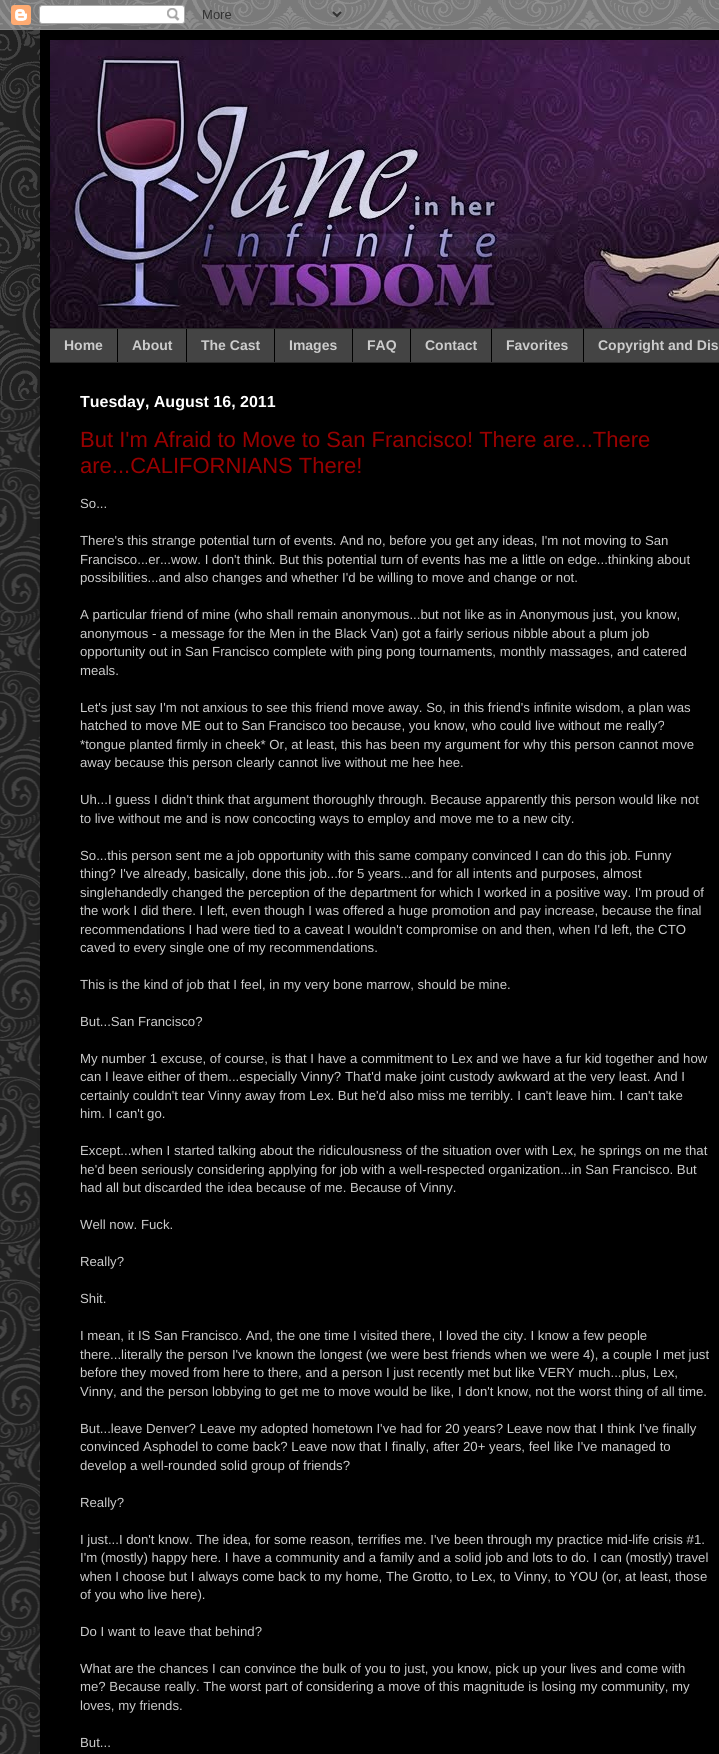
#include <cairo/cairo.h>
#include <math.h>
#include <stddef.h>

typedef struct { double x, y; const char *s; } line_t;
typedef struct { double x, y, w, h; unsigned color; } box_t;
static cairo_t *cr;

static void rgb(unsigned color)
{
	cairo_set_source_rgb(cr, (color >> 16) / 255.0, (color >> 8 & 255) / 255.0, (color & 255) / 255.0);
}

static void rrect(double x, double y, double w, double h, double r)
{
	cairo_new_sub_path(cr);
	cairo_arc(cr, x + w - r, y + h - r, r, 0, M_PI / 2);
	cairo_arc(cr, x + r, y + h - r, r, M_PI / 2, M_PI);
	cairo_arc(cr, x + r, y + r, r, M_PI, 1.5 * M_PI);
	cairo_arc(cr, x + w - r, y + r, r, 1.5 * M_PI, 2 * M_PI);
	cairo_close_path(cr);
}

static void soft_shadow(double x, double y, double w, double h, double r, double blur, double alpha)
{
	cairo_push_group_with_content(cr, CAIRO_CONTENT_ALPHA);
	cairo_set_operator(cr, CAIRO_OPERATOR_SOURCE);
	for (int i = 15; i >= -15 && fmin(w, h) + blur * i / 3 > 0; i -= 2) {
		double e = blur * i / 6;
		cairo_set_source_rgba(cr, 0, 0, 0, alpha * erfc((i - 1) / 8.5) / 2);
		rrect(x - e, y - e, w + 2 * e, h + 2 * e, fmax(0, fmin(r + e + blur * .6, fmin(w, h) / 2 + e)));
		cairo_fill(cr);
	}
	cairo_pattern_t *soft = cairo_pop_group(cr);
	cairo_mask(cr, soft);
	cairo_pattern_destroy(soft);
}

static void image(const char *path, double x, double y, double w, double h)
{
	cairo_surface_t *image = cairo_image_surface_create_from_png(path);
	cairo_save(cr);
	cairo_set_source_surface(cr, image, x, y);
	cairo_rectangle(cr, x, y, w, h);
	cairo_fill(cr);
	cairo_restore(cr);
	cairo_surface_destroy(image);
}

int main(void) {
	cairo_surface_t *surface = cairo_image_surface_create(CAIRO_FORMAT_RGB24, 719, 1754);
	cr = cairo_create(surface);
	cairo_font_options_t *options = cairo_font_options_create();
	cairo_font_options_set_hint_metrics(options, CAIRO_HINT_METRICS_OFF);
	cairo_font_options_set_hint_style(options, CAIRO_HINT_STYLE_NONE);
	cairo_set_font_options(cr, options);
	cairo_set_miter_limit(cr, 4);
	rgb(0x292929);
	cairo_paint(cr);
	image("img/1.png", 0, 400, 40, 1354);
	image("img/2.png", 0, 0, 719, 400);
	rgb(0x000000);
	soft_shadow(40, 30, 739, 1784, 0, 20, 0.15);
	image("img/3.png", 0, 0, 719, 30);
	rgb(0x000000);
	cairo_rectangle(cr, 40, 30, 679, 1724);
	cairo_fill(cr);
	image("img/4.png", 50, 40, 669, 288);
	{
		static const box_t items[] = {
			{50, 329, 669, 33, 0x444444},
			{50, 328, 669, 1, 0x292929},
			{50, 362, 669, 1, 0x292929},
			{117, 329, 1, 33, 0x000000},
			{186, 329, 1, 33, 0x000000},
			{274, 329, 1, 33, 0x000000},
			{352, 329, 1, 33, 0x000000},
			{410, 329, 1, 33, 0x000000},
			{491, 329, 1, 33, 0x000000},
			{583, 329, 1, 33, 0x000000},
		};
		for (size_t i = 0; i < sizeof items / sizeof *items; i++) {
			rgb(items[i].color);
			cairo_rectangle(cr, items[i].x, items[i].y, items[i].w, items[i].h);
			cairo_fill(cr);
		}
	}
	cairo_select_font_face(cr, "Liberation Sans", CAIRO_FONT_SLANT_NORMAL, CAIRO_FONT_WEIGHT_BOLD);
	cairo_set_font_size(cr, 14);
	rgb(0xcccccc);
	{
		static const line_t items[] = {
			{64, 350, "Home"},
			{132, 350, "About"},
			{201, 350, "The Cast"},
			{289, 350, "Images"},
			{367, 350, "FAQ"},
			{425, 350, "Contact"},
			{506, 350, "Favorites"},
			{598, 350, "Copyright and Dis"},
		};
		for (size_t i = 0; i < sizeof items / sizeof *items; i++) {
			cairo_move_to(cr, items[i].x, items[i].y);
			cairo_show_text(cr, items[i].s);
		}
	}
	cairo_set_font_size(cr, 16);
	rgb(0xffffff);
	cairo_move_to(cr, 80, 407);
	cairo_show_text(cr, "Tuesday, August 16, 2011");
	cairo_select_font_face(cr, "Liberation Sans", CAIRO_FONT_SLANT_NORMAL, CAIRO_FONT_WEIGHT_NORMAL);
	cairo_set_font_size(cr, 22);
	rgb(0x990000);
	cairo_move_to(cr, 80, 447);
	cairo_show_text(cr, "But I'm Afraid to Move to San Francisco! There are...There");
	cairo_move_to(cr, 80, 473);
	cairo_show_text(cr, "are...CALIFORNIANS There!");
	cairo_set_font_size(cr, 13.2);
	rgb(0xcccccc);
	{
		static const line_t items[] = {
			{80, 508, "So..."},
			{80, 545, "There's this strange potential turn of events. And no, before you get any ideas, I'm not moving to San"},
			{80, 564, "Francisco...er...wow. I don't think. But this potential turn of events has me a little on edge...thinking about"},
			{80, 582, "possibilities...and also changes and whether I'd be willing to move and change or not."},
			{80, 619, "A particular friend of mine (who shall remain anonymous...but not like as in Anonymous just, you know,"},
			{80, 638, "anonymous - a message for the Men in the Black Van) got a fairly serious nibble about a plum job"},
			{80, 656, "opportunity out in San Francisco complete with ping pong tournaments, monthly massages, and catered"},
			{80, 675, "meals."},
			{80, 712, "Let's just say I'm not anxious to see this friend move away. So, in this friend's infinite wisdom, a plan was"},
			{80, 730, "hatched to move ME out to San Francisco too because, you know, who could live without me really?"},
			{80, 749, "*tongue planted firmly in cheek* Or, at least, this has been my argument for why this person cannot move"},
			{80, 767, "away because this person clearly cannot live without me hee hee."},
			{80, 804, "Uh...I guess I didn't think that argument thoroughly through. Because apparently this person would like not"},
			{80, 823, "to live without me and is now concocting ways to employ and move me to a new city."},
			{80, 860, "So...this person sent me a job opportunity with this same company convinced I can do this job. Funny"},
			{80, 878, "thing? I've already, basically, done this job...for 5 years...and for all intents and purposes, almost"},
			{80, 897, "singlehandedly changed the perception of the department for which I worked in a positive way. I'm proud of"},
			{80, 915, "the work I did there. I left, even though I was offered a huge promotion and pay increase, because the final"},
			{80, 934, "recommendations I had were tied to a caveat I wouldn't compromise on and then, when I'd left, the CTO"},
			{80, 952, "caved to every single one of my recommendations."},
			{80, 989, "This is the kind of job that I feel, in my very bone marrow, should be mine."},
			{80, 1026, "But...San Francisco?"},
			{80, 1063, "My number 1 excuse, of course, is that I have a commitment to Lex and we have a fur kid together and how"},
			{80, 1081, "can I leave either of them...especially Vinny? That'd make joint custody awkward at the very least. And I"},
			{80, 1100, "certainly couldn't tear Vinny away from Lex. But he'd also miss me terribly. I can't leave him. I can't take"},
			{80, 1118, "him. I can't go."},
			{80, 1155, "Except...when I started talking about the ridiculousness of the situation over with Lex, he springs on me that"},
			{80, 1174, "he'd been seriously considering applying for job with a well-respected organization...in San Francisco. But"},
			{80, 1192, "had all but discarded the idea because of me. Because of Vinny."},
			{80, 1229, "Well now. Fuck."},
			{80, 1266, "Really?"},
			{80, 1303, "Shit."},
			{80, 1340, "I mean, it IS San Francisco. And, the one time I visited there, I loved the city. I know a few people"},
			{80, 1359, "there...literally the person I've known the longest (we were best friends when we were 4), a couple I met just"},
			{80, 1377, "before they moved from here to there, and a person I just recently met but like VERY much...plus, Lex,"},
			{80, 1396, "Vinny, and the person lobbying to get me to move would be like, I don't know, not the worst thing of all time."},
			{80, 1433, "But...leave Denver? Leave my adopted hometown I've had for 20 years? Leave now that I think I've finally"},
			{80, 1451, "convinced Asphodel to come back? Leave now that I finally, after 20+ years, feel like I've managed to"},
			{80, 1470, "develop a well-rounded solid group of friends?"},
			{80, 1507, "Really?"},
			{80, 1544, "I just...I don't know. The idea, for some reason, terrifies me. I've been through my practice mid-life crisis #1."},
			{80, 1562, "I'm (mostly) happy here. I have a community and a family and a solid job and lots to do. I can (mostly) travel"},
			{80, 1581, "when I choose but I always come back to my home, The Grotto, to Lex, to Vinny, to YOU (or, at least, those"},
			{80, 1599, "of you who live here)."},
			{80, 1636, "Do I want to leave that behind?"},
			{80, 1673, "What are the chances I can convince the bulk of you to just, you know, pick up your lives and come with"},
			{80, 1691, "me? Because really. The worst part of considering a move of this magnitude is losing my community, my"},
			{80, 1710, "loves, my friends."},
			{80, 1747, "But..."},
		};
		for (size_t i = 0; i < sizeof items / sizeof *items; i++) {
			cairo_move_to(cr, items[i].x, items[i].y);
			cairo_show_text(cr, items[i].s);
		}
	}
	cairo_surface_write_to_png(surface, "page.png");
	cairo_font_options_destroy(options);
	cairo_destroy(cr);
	cairo_surface_destroy(surface);
	return 0;
}
